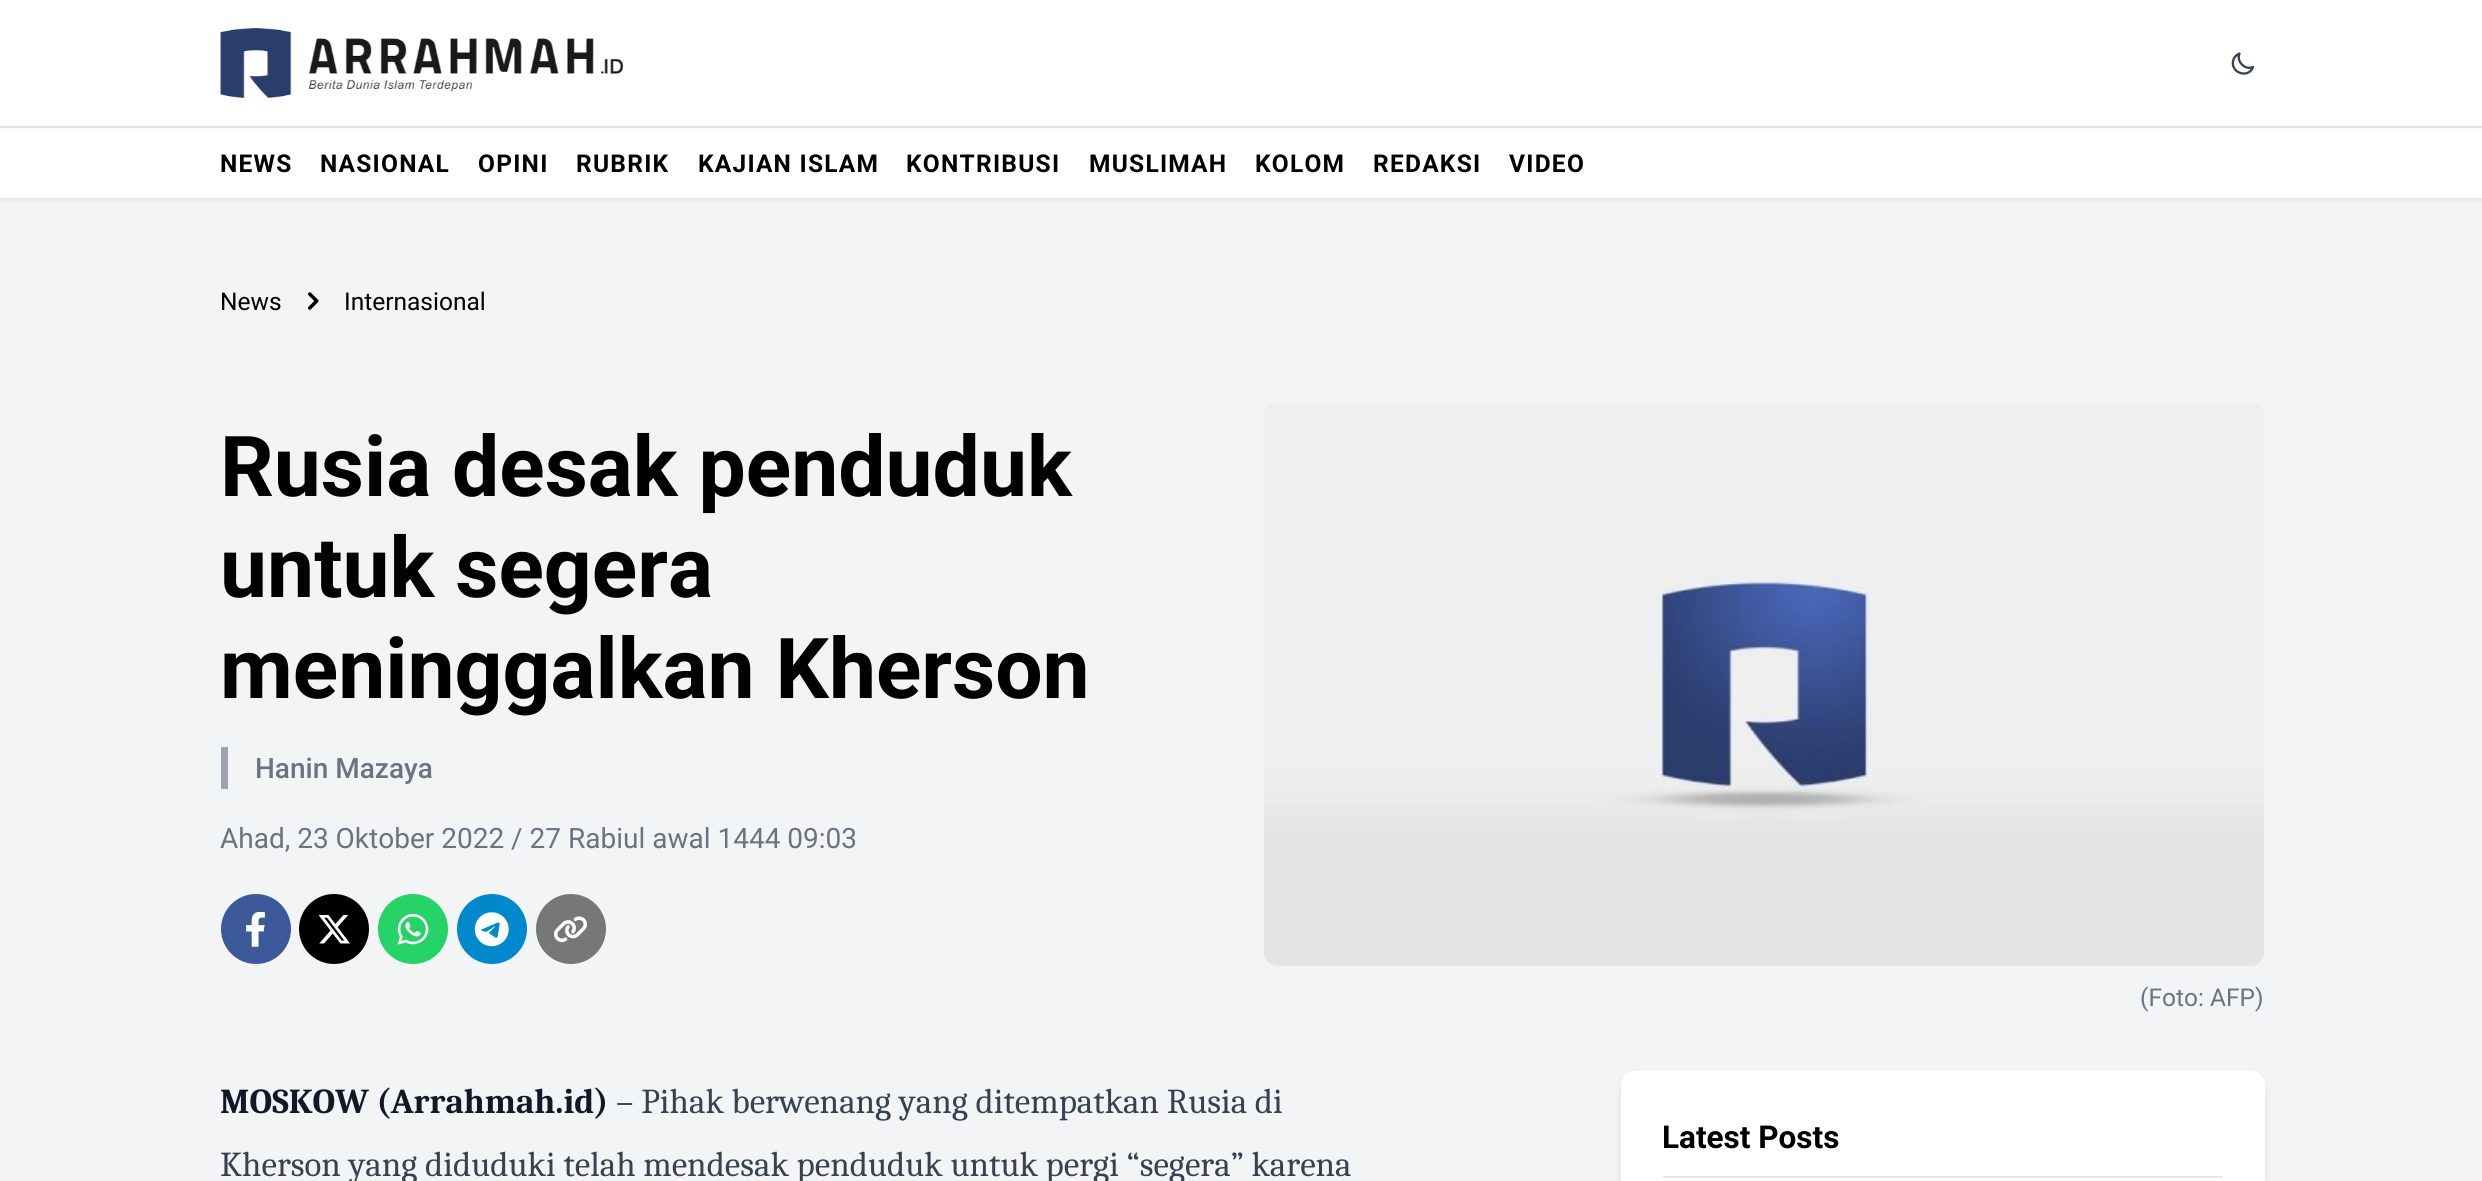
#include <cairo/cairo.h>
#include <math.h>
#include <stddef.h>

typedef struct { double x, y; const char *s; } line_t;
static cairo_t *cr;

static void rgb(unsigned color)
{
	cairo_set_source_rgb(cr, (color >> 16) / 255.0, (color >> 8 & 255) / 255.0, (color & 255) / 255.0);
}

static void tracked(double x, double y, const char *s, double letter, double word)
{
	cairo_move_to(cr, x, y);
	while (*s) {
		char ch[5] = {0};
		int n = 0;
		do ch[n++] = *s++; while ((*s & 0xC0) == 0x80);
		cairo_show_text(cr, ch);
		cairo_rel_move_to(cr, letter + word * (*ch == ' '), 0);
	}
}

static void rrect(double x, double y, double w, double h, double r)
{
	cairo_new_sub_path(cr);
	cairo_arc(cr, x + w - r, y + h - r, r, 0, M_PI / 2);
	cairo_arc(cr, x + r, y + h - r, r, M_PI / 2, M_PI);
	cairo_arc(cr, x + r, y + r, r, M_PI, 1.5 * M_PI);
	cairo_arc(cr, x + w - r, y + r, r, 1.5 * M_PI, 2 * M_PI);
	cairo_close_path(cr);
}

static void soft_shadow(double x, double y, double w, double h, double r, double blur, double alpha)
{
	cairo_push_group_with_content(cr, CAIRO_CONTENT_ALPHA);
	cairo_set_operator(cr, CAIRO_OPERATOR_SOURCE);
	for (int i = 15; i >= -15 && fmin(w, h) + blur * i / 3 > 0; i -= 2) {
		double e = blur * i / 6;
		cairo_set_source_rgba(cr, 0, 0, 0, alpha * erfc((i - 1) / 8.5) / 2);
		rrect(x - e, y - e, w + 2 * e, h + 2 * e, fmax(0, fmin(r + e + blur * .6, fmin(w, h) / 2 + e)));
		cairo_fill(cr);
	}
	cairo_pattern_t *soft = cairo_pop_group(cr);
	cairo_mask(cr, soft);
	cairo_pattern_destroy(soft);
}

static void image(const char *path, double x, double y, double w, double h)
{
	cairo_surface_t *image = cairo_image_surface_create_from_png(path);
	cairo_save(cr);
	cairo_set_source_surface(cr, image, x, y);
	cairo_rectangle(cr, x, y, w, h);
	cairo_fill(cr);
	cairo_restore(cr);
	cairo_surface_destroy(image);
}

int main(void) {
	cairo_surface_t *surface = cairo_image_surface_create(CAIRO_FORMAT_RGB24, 2482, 1181);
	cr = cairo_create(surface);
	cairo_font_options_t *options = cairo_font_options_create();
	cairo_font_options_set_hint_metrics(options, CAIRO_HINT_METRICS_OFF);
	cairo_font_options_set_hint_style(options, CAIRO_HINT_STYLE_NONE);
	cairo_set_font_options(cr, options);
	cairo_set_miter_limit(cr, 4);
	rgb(0xf3f4f6);
	cairo_paint(cr);
	rgb(0x000000);
	soft_shadow(0, 128, 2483, 73, 0, 2, 0.05);
	rgb(0xffffff);
	cairo_rectangle(cr, 0, 128, 2482, 70);
	cairo_fill(cr);
	rgb(0xe5e7eb);
	cairo_rectangle(cr, 0, 126, 2482, 2);
	cairo_fill(cr);
	rgb(0x000000);
	soft_shadow(0, 2, 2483, 126, 0, 2, 0.05);
	rgb(0xffffff);
	cairo_rectangle(cr, 0, 0, 2482, 126);
	cairo_fill(cr);
	image("img/1.png", 220, 28, 403, 70);
	cairo_new_path(cr);
	cairo_move_to(cr, 2253, 67);
	cairo_curve_to(cr, 2245, 70.5, 2236, 61.5, 2239.5, 53.5);
	cairo_curve_to(cr, 2237, 54.5, 2234.5, 56.5, 2233.5, 59.5);
	cairo_curve_to(cr, 2229, 72.5, 2248.5, 79.5, 2253, 67);
	cairo_close_path(cr);
	rgb(0x374151);
	cairo_set_line_width(cr, 2.3);
	cairo_set_line_cap(cr, CAIRO_LINE_CAP_ROUND);
	cairo_set_line_join(cr, CAIRO_LINE_JOIN_ROUND);
	cairo_stroke(cr);
	rgb(0xe5e7eb);
	cairo_rectangle(cr, 0, 198, 2482, 2);
	cairo_fill(cr);
	image("img/2.png", 308, 292, 11, 18);
	rgb(0x9ca3af);
	cairo_rectangle(cr, 221, 747, 7, 42);
	cairo_fill(cr);
	rgb(0x3b5998);
	cairo_arc(cr, 256, 929, 35, 0, 2 * M_PI);
	cairo_fill(cr);
	image("img/3.png", 246, 912, 19, 35);
	rgb(0x000000);
	cairo_arc(cr, 334, 929, 35, 0, 2 * M_PI);
	cairo_fill(cr);
	image("img/4.png", 318, 915, 32, 29);
	rgb(0x25d366);
	cairo_arc(cr, 413, 929, 35, 0, 2 * M_PI);
	cairo_fill(cr);
	image("img/5.png", 397, 913, 32, 32);
	rgb(0x0088cc);
	cairo_arc(cr, 492, 929, 35, 0, 2 * M_PI);
	cairo_fill(cr);
	image("img/6.png", 474, 912, 35, 35);
	rgb(0x777777);
	cairo_arc(cr, 571, 929, 35, 0, 2 * M_PI);
	cairo_fill(cr);
	image("img/7.png", 554, 916, 33, 27);
	image("img/8.png", 1263, 403, 1002, 563);
	rgb(0x000000);
	soft_shadow(1622, 1080, 641, 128, 12, 5, 0.1);
	rgb(0xffffff);
	rrect(1621, 1071, 644, 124, 14);
	cairo_fill(cr);
	rgb(0xe5e7eb);
	cairo_rectangle(cr, 1663, 1176, 560, 2);
	cairo_fill(cr);
	cairo_select_font_face(cr, "Roboto", CAIRO_FONT_SLANT_NORMAL, CAIRO_FONT_WEIGHT_BOLD);
	cairo_set_font_size(cr, 24.5);
	rgb(0x000000);
	{
		static const line_t items[] = {
			{220, 172, "NEWS"},
			{320, 172, "NASIONAL"},
			{478, 172, "OPINI"},
			{576, 172, "RUBRIK"},
			{698, 172, "KAJIAN ISLAM"},
			{906, 172, "KONTRIBUSI"},
			{1089, 172, "MUSLIMAH"},
			{1255, 172, "KOLOM"},
			{1373, 172, "REDAKSI"},
			{1509, 172, "VIDEO"},
		};
		for (size_t i = 0; i < sizeof items / sizeof *items; i++) {
			tracked(items[i].x, items[i].y, items[i].s, 1.25, 0);
		}
	}
	cairo_select_font_face(cr, "Roboto", CAIRO_FONT_SLANT_NORMAL, CAIRO_FONT_WEIGHT_NORMAL);
	cairo_move_to(cr, 220, 310);
	cairo_show_text(cr, "News");
	cairo_move_to(cr, 344, 310);
	cairo_show_text(cr, "Internasional");
	cairo_select_font_face(cr, "Roboto", CAIRO_FONT_SLANT_NORMAL, CAIRO_FONT_WEIGHT_BOLD);
	cairo_set_font_size(cr, 84);
	{
		static const line_t items[] = {
			{220, 496, "Rusia desak penduduk"},
			{220, 597, "untuk segera"},
			{220, 698, "meninggalkan Kherson"},
		};
		for (size_t i = 0; i < sizeof items / sizeof *items; i++) {
			cairo_move_to(cr, items[i].x, items[i].y);
			cairo_show_text(cr, items[i].s);
		}
	}
	cairo_select_font_face(cr, "Roboto Medium", CAIRO_FONT_SLANT_NORMAL, CAIRO_FONT_WEIGHT_NORMAL);
	cairo_set_font_size(cr, 28);
	rgb(0x6b7280);
	cairo_move_to(cr, 255, 778);
	cairo_show_text(cr, "Hanin Mazaya");
	cairo_select_font_face(cr, "Roboto", CAIRO_FONT_SLANT_NORMAL, CAIRO_FONT_WEIGHT_NORMAL);
	cairo_move_to(cr, 220, 848);
	cairo_show_text(cr, "Ahad, 23 Oktober 2022 / 27 Rabiul awal 1444 09:03");
	cairo_set_font_size(cr, 24.5);
	cairo_move_to(cr, 2140, 1006);
	cairo_show_text(cr, "(Foto: AFP)");
	cairo_save(cr);
	rrect(221, 1071, 1176, 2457, 14);
	cairo_clip(cr);
	cairo_select_font_face(cr, "Caladea", CAIRO_FONT_SLANT_NORMAL, CAIRO_FONT_WEIGHT_BOLD);
	cairo_set_font_size(cr, 35);
	rgb(0x111827);
	cairo_move_to(cr, 220, 1113);
	cairo_show_text(cr, "MOSKOW (Arrahmah.id)");
	cairo_restore(cr);
	cairo_select_font_face(cr, "Caladea", CAIRO_FONT_SLANT_NORMAL, CAIRO_FONT_WEIGHT_NORMAL);
	cairo_set_font_size(cr, 35);
	rgb(0x374151);
	cairo_move_to(cr, 616, 1113);
	cairo_show_text(cr, "– Pihak berwenang yang ditempatkan Rusia di");
	cairo_move_to(cr, 220, 1176);
	cairo_show_text(cr, "Kherson yang diduduki telah mendesak penduduk untuk pergi “segera” karena");
	cairo_select_font_face(cr, "Roboto", CAIRO_FONT_SLANT_NORMAL, CAIRO_FONT_WEIGHT_BOLD);
	cairo_set_font_size(cr, 31.5);
	rgb(0x000000);
	cairo_move_to(cr, 1662, 1148);
	cairo_show_text(cr, "Latest Posts");
	cairo_surface_write_to_png(surface, "page.png");
	cairo_font_options_destroy(options);
	cairo_destroy(cr);
	cairo_surface_destroy(surface);
	return 0;
}
